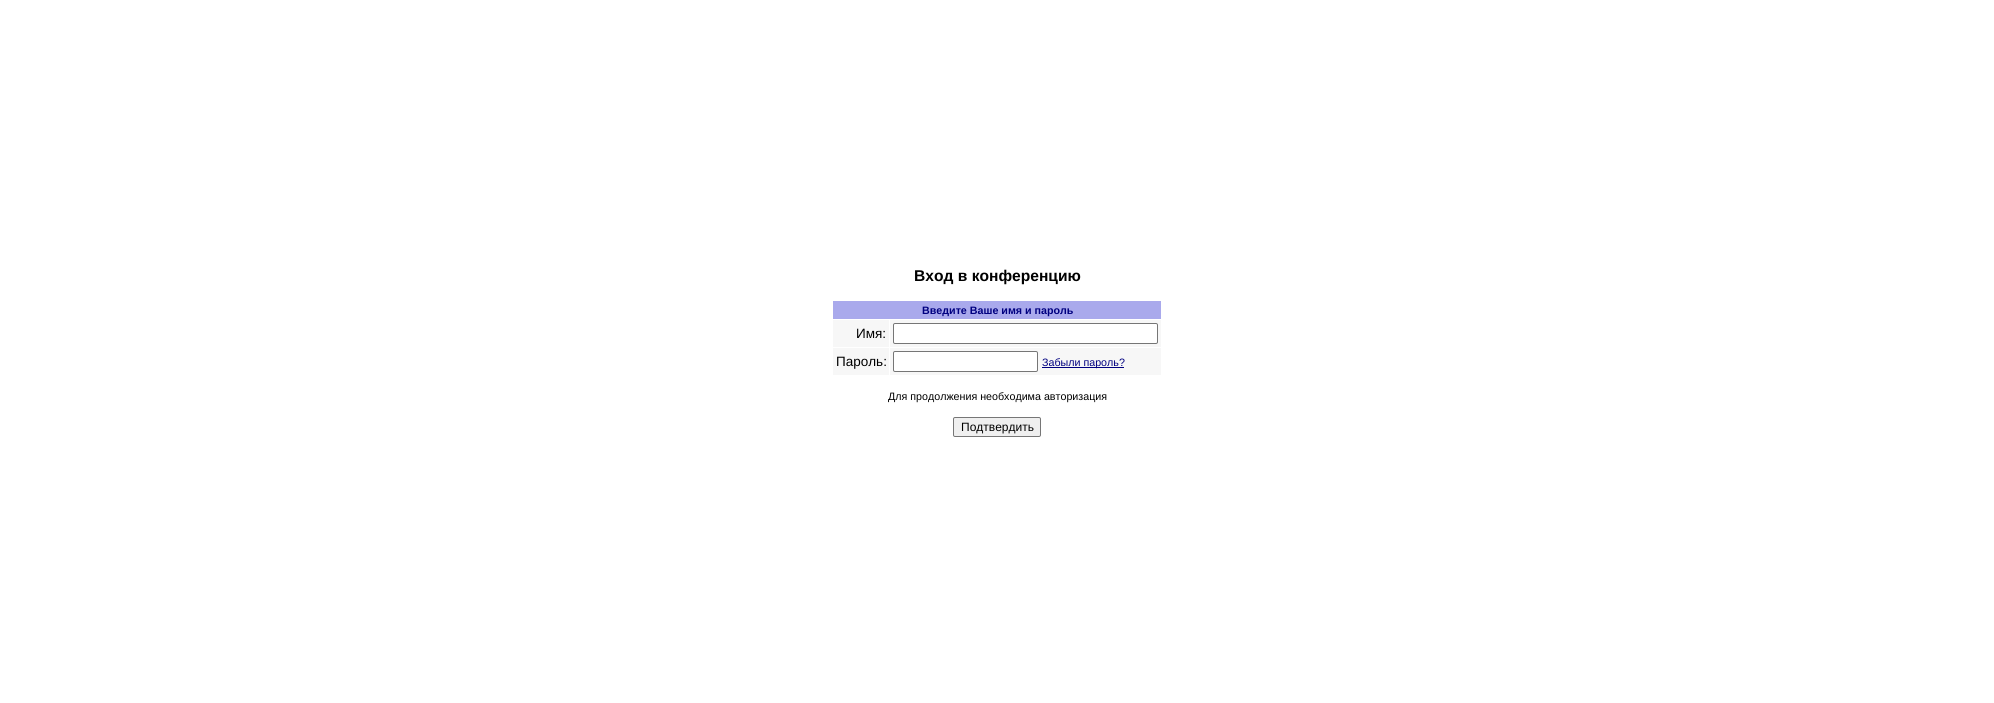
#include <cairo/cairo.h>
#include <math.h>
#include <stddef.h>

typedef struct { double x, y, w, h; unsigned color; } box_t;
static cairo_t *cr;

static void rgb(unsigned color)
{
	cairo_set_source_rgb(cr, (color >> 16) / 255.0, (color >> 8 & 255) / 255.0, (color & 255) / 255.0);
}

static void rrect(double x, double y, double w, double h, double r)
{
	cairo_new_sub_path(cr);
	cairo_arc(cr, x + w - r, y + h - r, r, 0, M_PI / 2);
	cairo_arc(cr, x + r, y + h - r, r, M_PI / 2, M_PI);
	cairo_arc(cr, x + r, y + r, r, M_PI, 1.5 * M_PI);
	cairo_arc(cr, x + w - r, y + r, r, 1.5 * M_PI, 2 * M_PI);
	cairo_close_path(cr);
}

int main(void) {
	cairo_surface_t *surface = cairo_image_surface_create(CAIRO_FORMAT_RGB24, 1994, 703);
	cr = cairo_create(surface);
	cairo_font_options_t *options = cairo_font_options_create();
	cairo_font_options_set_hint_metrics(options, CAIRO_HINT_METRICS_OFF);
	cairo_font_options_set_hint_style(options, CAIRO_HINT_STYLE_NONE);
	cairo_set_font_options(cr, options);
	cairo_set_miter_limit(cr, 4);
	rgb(0xffffff);
	cairo_paint(cr);
	{
		static const box_t items[] = {
			{833, 301, 328, 18, 0xa9a9ec},
			{833, 320, 56, 27, 0xf7f7f7},
			{890, 320, 271, 27, 0xf7f7f7},
		};
		for (size_t i = 0; i < sizeof items / sizeof *items; i++) {
			rgb(items[i].color);
			cairo_rectangle(cr, items[i].x, items[i].y, items[i].w, items[i].h);
			cairo_fill(cr);
		}
	}
	rgb(0xffffff);
	rrect(893.5, 323.5, 264, 20, 1.5);
	cairo_fill_preserve(cr);
	rgb(0x767676);
	cairo_set_line_width(cr, 1);
	cairo_stroke(cr);
	rgb(0xf7f7f7);
	cairo_rectangle(cr, 833, 348, 56, 27);
	cairo_fill(cr);
	cairo_rectangle(cr, 890, 348, 271, 27);
	cairo_fill(cr);
	rgb(0xffffff);
	rrect(893.5, 351.5, 144, 20, 1.5);
	cairo_fill_preserve(cr);
	rgb(0x767676);
	cairo_stroke(cr);
	rgb(0x000080);
	cairo_rectangle(cr, 1042, 367, 82, 1);
	cairo_fill(cr);
	rgb(0xefefef);
	rrect(953.5, 417.5, 87, 19, 1.5);
	cairo_fill_preserve(cr);
	rgb(0x767676);
	cairo_stroke(cr);
	cairo_select_font_face(cr, "Liberation Sans", CAIRO_FONT_SLANT_NORMAL, CAIRO_FONT_WEIGHT_BOLD);
	cairo_set_font_size(cr, 15.6);
	rgb(0x000000);
	cairo_move_to(cr, 914, 281);
	cairo_show_text(cr, "Вход в конференцию");
	cairo_set_font_size(cr, 10.7);
	rgb(0x000080);
	cairo_move_to(cr, 922, 314);
	cairo_show_text(cr, "Введите Ваше имя и пароль");
	cairo_select_font_face(cr, "Liberation Sans", CAIRO_FONT_SLANT_NORMAL, CAIRO_FONT_WEIGHT_NORMAL);
	cairo_set_font_size(cr, 13.5);
	rgb(0x000000);
	cairo_move_to(cr, 856, 338);
	cairo_show_text(cr, "Имя:");
	cairo_move_to(cr, 836, 366);
	cairo_show_text(cr, "Пароль:");
	cairo_set_font_size(cr, 10.7);
	rgb(0x000080);
	cairo_move_to(cr, 1042, 366);
	cairo_show_text(cr, "Забыли пароль?");
	rgb(0x000000);
	cairo_move_to(cr, 888, 400);
	cairo_show_text(cr, "Для продолжения необходима авторизация");
	cairo_set_font_size(cr, 12);
	cairo_move_to(cr, 961, 431);
	cairo_show_text(cr, "Подтвердить");
	cairo_surface_write_to_png(surface, "page.png");
	cairo_font_options_destroy(options);
	cairo_destroy(cr);
	cairo_surface_destroy(surface);
	return 0;
}
